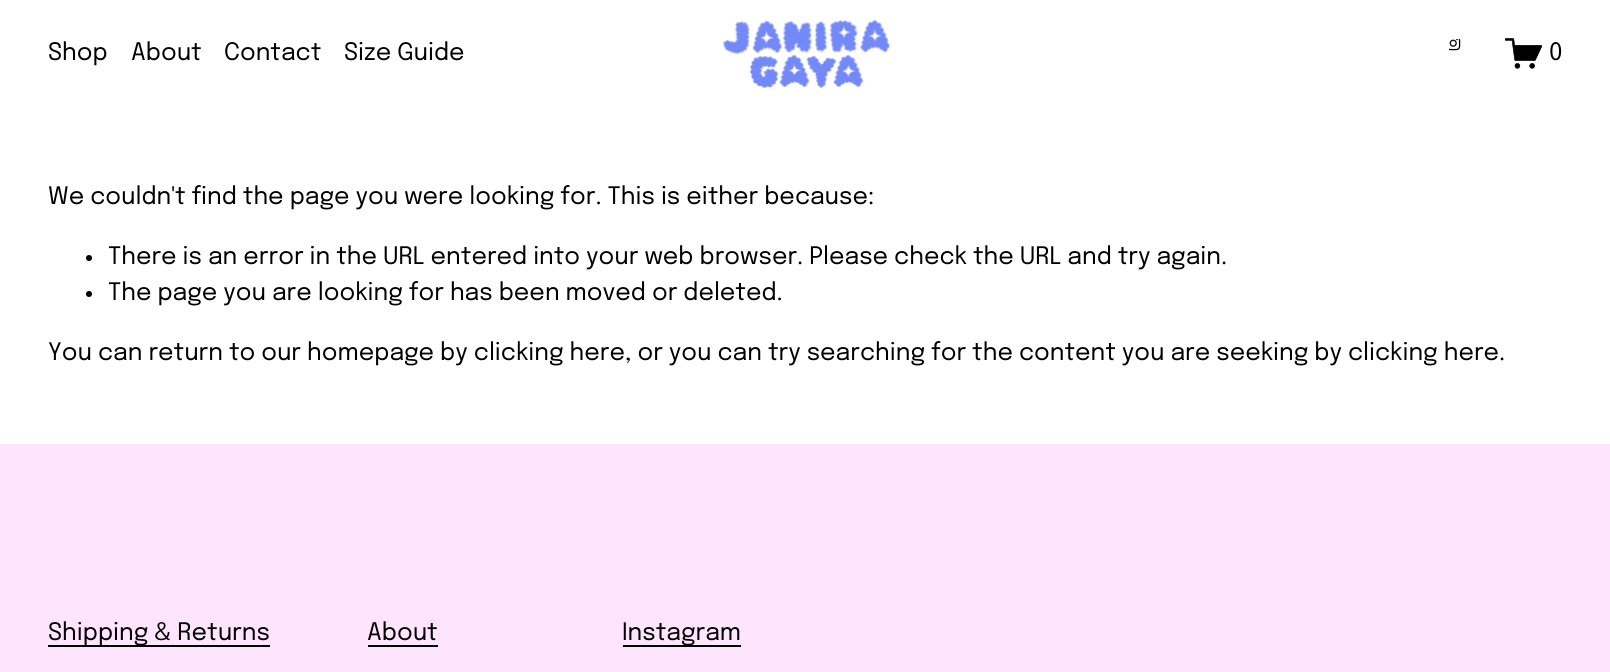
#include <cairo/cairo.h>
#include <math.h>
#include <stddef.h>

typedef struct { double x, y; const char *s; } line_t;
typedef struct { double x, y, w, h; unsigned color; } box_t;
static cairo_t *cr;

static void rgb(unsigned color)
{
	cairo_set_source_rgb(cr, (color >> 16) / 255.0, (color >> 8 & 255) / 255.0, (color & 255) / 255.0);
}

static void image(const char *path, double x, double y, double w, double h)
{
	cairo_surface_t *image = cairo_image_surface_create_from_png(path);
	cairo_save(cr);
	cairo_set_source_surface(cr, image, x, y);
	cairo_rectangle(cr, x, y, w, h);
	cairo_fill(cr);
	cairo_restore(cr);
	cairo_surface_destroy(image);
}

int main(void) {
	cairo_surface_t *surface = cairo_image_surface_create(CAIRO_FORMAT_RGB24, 1610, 672);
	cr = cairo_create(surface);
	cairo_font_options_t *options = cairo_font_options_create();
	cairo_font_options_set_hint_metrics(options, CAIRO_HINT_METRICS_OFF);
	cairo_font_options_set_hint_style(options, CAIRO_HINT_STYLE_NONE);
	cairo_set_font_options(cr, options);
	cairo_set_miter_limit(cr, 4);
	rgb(0xffffff);
	cairo_paint(cr);
	image("img/1.png", 722, 19, 168, 69);
	image("img/2.png", 1449, 39, 12, 12);
	image("img/3.png", 1505, 38, 37, 31);
	rgb(0x000000);
	cairo_arc(cr, 89, 258, 3, 0, 2 * M_PI);
	cairo_fill(cr);
	cairo_arc(cr, 89, 294, 3, 0, 2 * M_PI);
	cairo_fill(cr);
	{
		static const box_t items[] = {
			{0, 444, 1610, 228, 0xffe4fe},
			{48, 645, 222, 2, 0x000000},
			{368, 645, 70, 2, 0x000000},
			{623, 645, 118, 2, 0x000000},
		};
		for (size_t i = 0; i < sizeof items / sizeof *items; i++) {
			rgb(items[i].color);
			cairo_rectangle(cr, items[i].x, items[i].y, items[i].w, items[i].h);
			cairo_fill(cr);
		}
	}
	cairo_select_font_face(cr, "Epilogue", CAIRO_FONT_SLANT_NORMAL, CAIRO_FONT_WEIGHT_NORMAL);
	cairo_set_font_size(cr, 24);
	{
		static const line_t items[] = {
			{48, 60, "Shop"},
			{131, 60, "About"},
			{224, 60, "Contact"},
			{344, 60, "Size Guide"},
			{1549, 60, "0"},
			{48, 204, "We couldn't find the page you were looking for. This is either because:"},
			{108, 264, "There is an error in the URL entered into your web browser. Please check the URL and try again."},
			{108, 300, "The page you are looking for has been moved or deleted."},
			{48, 360, "You can return to our homepage by clicking here, or you can try searching for the content you are seeking by clicking here."},
			{48, 640, "Shipping & Returns"},
			{367, 640, "About"},
			{622, 640, "Instagram"},
		};
		for (size_t i = 0; i < sizeof items / sizeof *items; i++) {
			cairo_move_to(cr, items[i].x, items[i].y);
			cairo_show_text(cr, items[i].s);
		}
	}
	cairo_surface_write_to_png(surface, "page.png");
	cairo_font_options_destroy(options);
	cairo_destroy(cr);
	cairo_surface_destroy(surface);
	return 0;
}
